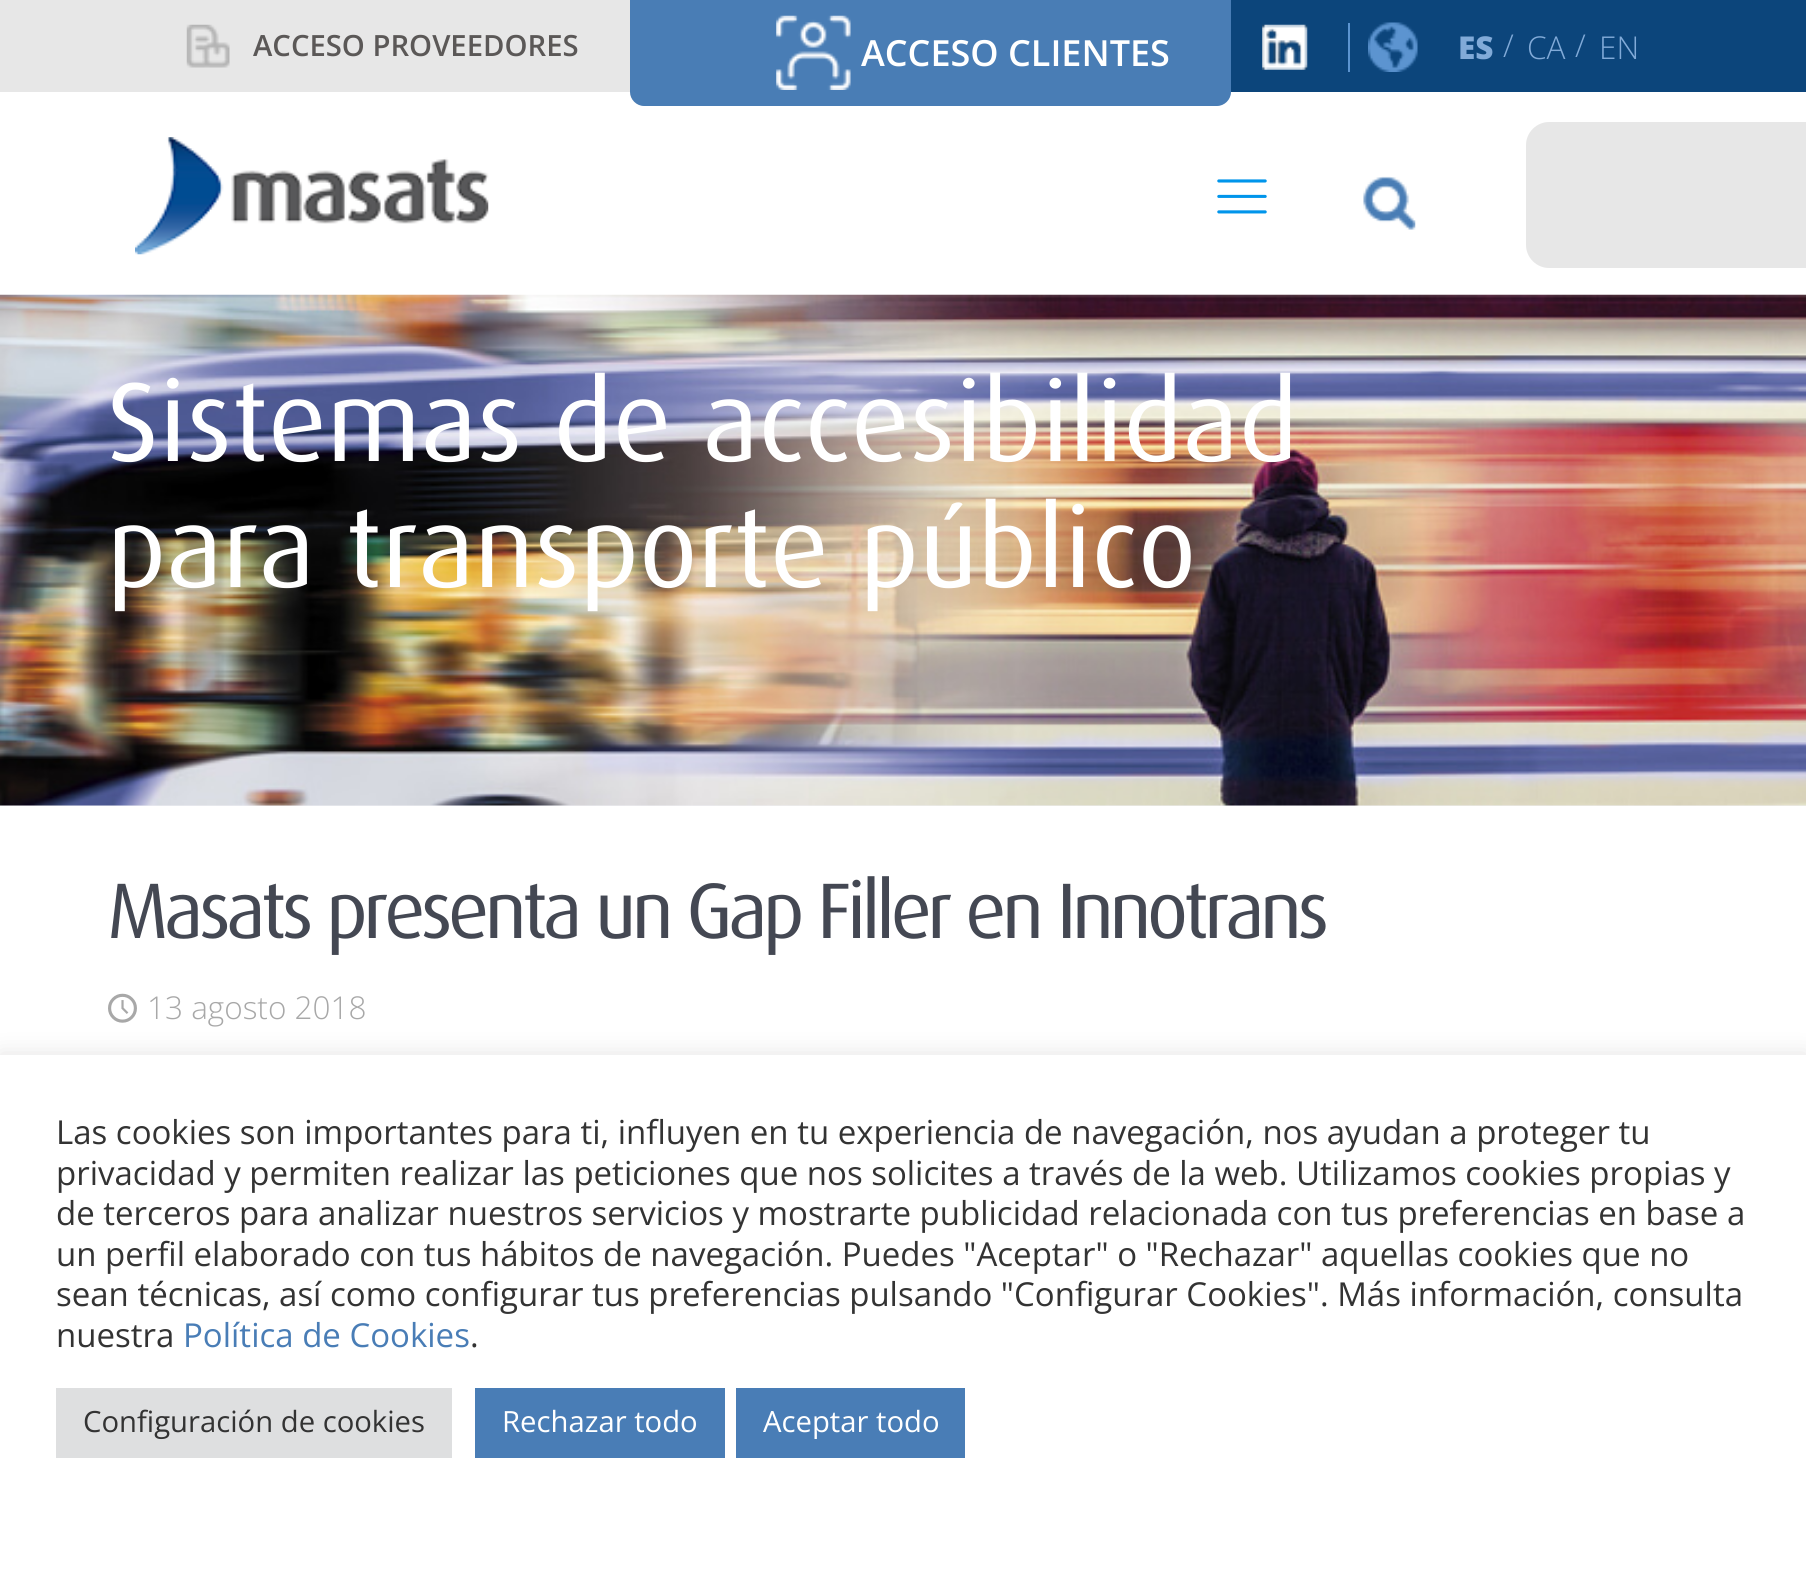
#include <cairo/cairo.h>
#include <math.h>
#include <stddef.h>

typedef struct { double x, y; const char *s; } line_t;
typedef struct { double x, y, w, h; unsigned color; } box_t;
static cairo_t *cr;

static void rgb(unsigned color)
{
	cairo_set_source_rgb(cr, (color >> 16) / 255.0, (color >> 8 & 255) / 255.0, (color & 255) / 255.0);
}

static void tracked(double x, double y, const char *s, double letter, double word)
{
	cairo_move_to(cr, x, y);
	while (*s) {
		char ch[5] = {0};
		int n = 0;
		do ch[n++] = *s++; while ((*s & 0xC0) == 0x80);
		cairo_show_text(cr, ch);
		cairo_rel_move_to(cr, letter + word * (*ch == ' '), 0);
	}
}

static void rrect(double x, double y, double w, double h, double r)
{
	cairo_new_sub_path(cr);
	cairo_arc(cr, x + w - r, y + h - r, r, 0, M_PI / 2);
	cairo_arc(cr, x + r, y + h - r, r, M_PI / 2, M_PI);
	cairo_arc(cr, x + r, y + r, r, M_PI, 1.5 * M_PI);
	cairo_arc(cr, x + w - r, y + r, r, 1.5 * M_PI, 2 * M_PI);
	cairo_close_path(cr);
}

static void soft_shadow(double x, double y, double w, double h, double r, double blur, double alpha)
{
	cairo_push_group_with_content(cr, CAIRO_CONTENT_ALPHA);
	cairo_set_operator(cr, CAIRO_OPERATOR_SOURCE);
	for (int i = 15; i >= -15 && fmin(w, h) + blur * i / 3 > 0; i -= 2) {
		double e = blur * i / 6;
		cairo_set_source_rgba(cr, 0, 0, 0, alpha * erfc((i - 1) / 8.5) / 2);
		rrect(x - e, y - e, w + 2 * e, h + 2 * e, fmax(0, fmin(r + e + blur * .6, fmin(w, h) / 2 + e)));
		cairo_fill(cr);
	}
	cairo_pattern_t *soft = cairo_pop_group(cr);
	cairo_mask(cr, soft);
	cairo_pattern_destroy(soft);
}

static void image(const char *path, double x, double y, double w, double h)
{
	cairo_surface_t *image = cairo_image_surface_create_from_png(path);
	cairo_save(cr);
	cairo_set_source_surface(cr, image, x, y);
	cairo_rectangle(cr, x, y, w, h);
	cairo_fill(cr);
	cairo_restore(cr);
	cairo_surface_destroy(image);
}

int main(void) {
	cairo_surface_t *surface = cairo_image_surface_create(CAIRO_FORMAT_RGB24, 1806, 1569);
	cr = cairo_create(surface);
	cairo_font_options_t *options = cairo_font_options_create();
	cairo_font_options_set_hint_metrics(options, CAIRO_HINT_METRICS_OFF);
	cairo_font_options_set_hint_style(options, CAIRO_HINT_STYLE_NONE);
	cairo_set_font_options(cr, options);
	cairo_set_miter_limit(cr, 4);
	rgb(0xffffff);
	cairo_paint(cr);
	rgb(0xe7e7e7);
	cairo_rectangle(cr, 0, 0, 630, 92);
	cairo_fill(cr);
	rgb(0x0c457b);
	cairo_rectangle(cr, 1231, 0, 575, 92);
	cairo_fill(cr);
	image("img/1.png", 186, 24, 44, 44);
	rgb(0x497db5);
	cairo_new_path(cr);
	cairo_move_to(cr, 630, 0);
	cairo_line_to(cr, 1231, 0);
	cairo_line_to(cr, 1231, 92);
	cairo_curve_to(cr, 1231, 99.5, 1224.5, 106, 1217, 106);
	cairo_line_to(cr, 644, 106);
	cairo_curve_to(cr, 636.5, 106, 630, 99.5, 630, 92);
	cairo_close_path(cr);
	cairo_fill(cr);
	image("img/2.png", 776, 15, 75, 75);
	image("img/3.png", 1262, 24, 46, 46);
	rgb(0x5c94d0);
	cairo_rectangle(cr, 1348, 23, 2, 49);
	cairo_fill(cr);
	image("img/4.png", 1368, 22, 50, 50);
	image("img/5.png", 135, 137, 354, 118);
	image("img/6.png", 1217, 179, 50, 35);
	image("img/7.png", 1363, 176, 53, 54);
	rgb(0xe7e7e7);
	cairo_new_path(cr);
	cairo_move_to(cr, 1549, 122);
	cairo_line_to(cr, 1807, 122);
	cairo_line_to(cr, 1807, 268);
	cairo_line_to(cr, 1549, 268);
	cairo_curve_to(cr, 1536.5, 268, 1526, 257.5, 1526, 245);
	cairo_line_to(cr, 1526, 145);
	cairo_curve_to(cr, 1526, 132.5, 1536.5, 122, 1549, 122);
	cairo_close_path(cr);
	cairo_fill(cr);
	rgb(0xf0f1f4);
	cairo_rectangle(cr, 0, 805, 1806, 1);
	cairo_fill(cr);
	image("img/8.png", 0, 294, 1806, 512);
	image("img/9.png", 108, 993, 29, 30);
	rgb(0xacabab);
	soft_shadow(0, 1053, 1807, 515, 0, 11, 0.3);
	{
		static const box_t items[] = {
			{0, 1055, 1806, 514, 0xffffff},
			{56, 1388, 396, 70, 0xdedfe0},
			{475, 1388, 250, 70, 0x497db6},
			{736, 1388, 229, 70, 0x497db6},
		};
		for (size_t i = 0; i < sizeof items / sizeof *items; i++) {
			rgb(items[i].color);
			cairo_rectangle(cr, items[i].x, items[i].y, items[i].w, items[i].h);
			cairo_fill(cr);
		}
	}
	cairo_select_font_face(cr, "Open Sans SemiBold", CAIRO_FONT_SLANT_NORMAL, CAIRO_FONT_WEIGHT_NORMAL);
	cairo_set_font_size(cr, 29.25);
	rgb(0x5b5857);
	cairo_move_to(cr, 253, 56);
	cairo_show_text(cr, "ACCESO PROVEEDORES");
	cairo_set_font_size(cr, 36);
	rgb(0xffffff);
	cairo_move_to(cr, 861, 66);
	cairo_show_text(cr, "ACCESO CLIENTES");
	cairo_select_font_face(cr, "Open Sans ExtraBold", CAIRO_FONT_SLANT_NORMAL, CAIRO_FONT_WEIGHT_NORMAL);
	cairo_set_font_size(cr, 31.5);
	rgb(0x81aad8);
	cairo_move_to(cr, 1458, 59);
	cairo_show_text(cr, "ES");
	cairo_select_font_face(cr, "Open Sans Light", CAIRO_FONT_SLANT_NORMAL, CAIRO_FONT_WEIGHT_NORMAL);
	{
		static const line_t items[] = {
			{1503, 57, "/"},
			{1527, 59, "CA"},
			{1575, 57, "/"},
			{1599, 59, "EN"},
		};
		for (size_t i = 0; i < sizeof items / sizeof *items; i++) {
			cairo_move_to(cr, items[i].x, items[i].y);
			cairo_show_text(cr, items[i].s);
		}
	}
	cairo_select_font_face(cr, "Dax", CAIRO_FONT_SLANT_NORMAL, CAIRO_FONT_WEIGHT_NORMAL);
	cairo_set_font_size(cr, 112.5);
	rgb(0xffffff);
	cairo_move_to(cr, 107, 461);
	cairo_show_text(cr, "Sistemas de accesibilidad");
	cairo_move_to(cr, 107, 587);
	cairo_show_text(cr, "para transporte público");
	cairo_set_font_size(cr, 78.75);
	rgb(0x444853);
	tracked(107, 938, "Masats presenta un Gap Filler en Innotrans", -4.5, 0);
	cairo_select_font_face(cr, "Open Sans Light", CAIRO_FONT_SLANT_NORMAL, CAIRO_FONT_WEIGHT_NORMAL);
	cairo_set_font_size(cr, 31.5);
	rgb(0xa8a8a8);
	cairo_move_to(cr, 147, 1019);
	cairo_show_text(cr, "13 agosto 2018");
	cairo_select_font_face(cr, "Open Sans", CAIRO_FONT_SLANT_NORMAL, CAIRO_FONT_WEIGHT_NORMAL);
	cairo_set_font_size(cr, 33);
	rgb(0x333333);
	{
		static const line_t items[] = {
			{56, 1144, "Las cookies son importantes para ti, influyen en tu experiencia de navegación, nos ayudan a proteger tu"},
			{56, 1185, "privacidad y permiten realizar las peticiones que nos solicites a través de la web. Utilizamos cookies propias y"},
			{56, 1225, "de terceros para analizar nuestros servicios y mostrarte publicidad relacionada con tus preferencias en base a"},
			{56, 1266, "un perfil elaborado con tus hábitos de navegación. Puedes \"Aceptar\" o \"Rechazar\" aquellas cookies que no"},
			{56, 1306, "sean técnicas, así como configurar tus preferencias pulsando \"Configurar Cookies\". Más información, consulta"},
			{56, 1347, "nuestra"},
		};
		for (size_t i = 0; i < sizeof items / sizeof *items; i++) {
			cairo_move_to(cr, items[i].x, items[i].y);
			cairo_show_text(cr, items[i].s);
		}
	}
	rgb(0x497db6);
	cairo_move_to(cr, 183, 1347);
	cairo_show_text(cr, "Política de Cookies");
	rgb(0x333333);
	cairo_move_to(cr, 470, 1347);
	cairo_show_text(cr, ".");
	cairo_set_font_size(cr, 29.25);
	cairo_move_to(cr, 83, 1432);
	cairo_show_text(cr, "Configuración de cookies");
	rgb(0xffffff);
	cairo_move_to(cr, 502, 1432);
	cairo_show_text(cr, "Rechazar todo");
	cairo_move_to(cr, 763, 1432);
	cairo_show_text(cr, "Aceptar todo");
	cairo_surface_write_to_png(surface, "page.png");
	cairo_font_options_destroy(options);
	cairo_destroy(cr);
	cairo_surface_destroy(surface);
	return 0;
}
